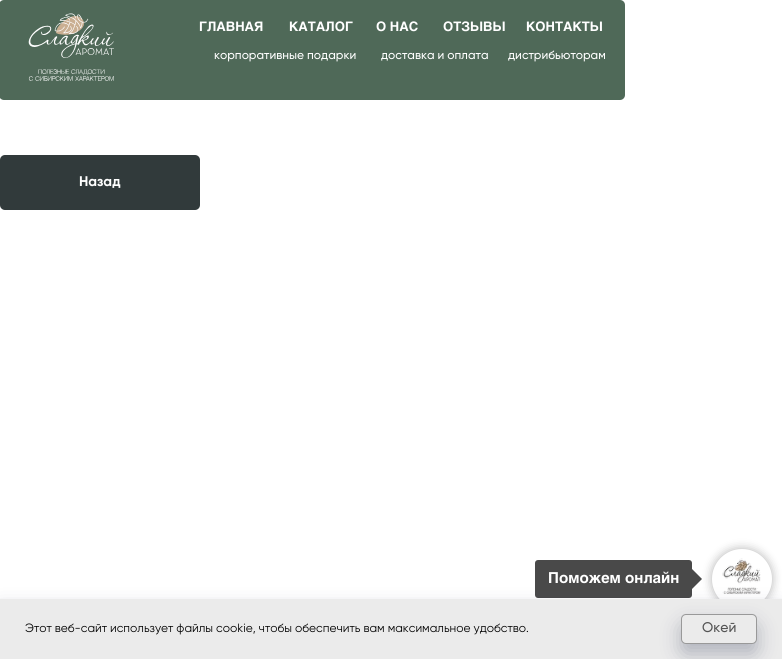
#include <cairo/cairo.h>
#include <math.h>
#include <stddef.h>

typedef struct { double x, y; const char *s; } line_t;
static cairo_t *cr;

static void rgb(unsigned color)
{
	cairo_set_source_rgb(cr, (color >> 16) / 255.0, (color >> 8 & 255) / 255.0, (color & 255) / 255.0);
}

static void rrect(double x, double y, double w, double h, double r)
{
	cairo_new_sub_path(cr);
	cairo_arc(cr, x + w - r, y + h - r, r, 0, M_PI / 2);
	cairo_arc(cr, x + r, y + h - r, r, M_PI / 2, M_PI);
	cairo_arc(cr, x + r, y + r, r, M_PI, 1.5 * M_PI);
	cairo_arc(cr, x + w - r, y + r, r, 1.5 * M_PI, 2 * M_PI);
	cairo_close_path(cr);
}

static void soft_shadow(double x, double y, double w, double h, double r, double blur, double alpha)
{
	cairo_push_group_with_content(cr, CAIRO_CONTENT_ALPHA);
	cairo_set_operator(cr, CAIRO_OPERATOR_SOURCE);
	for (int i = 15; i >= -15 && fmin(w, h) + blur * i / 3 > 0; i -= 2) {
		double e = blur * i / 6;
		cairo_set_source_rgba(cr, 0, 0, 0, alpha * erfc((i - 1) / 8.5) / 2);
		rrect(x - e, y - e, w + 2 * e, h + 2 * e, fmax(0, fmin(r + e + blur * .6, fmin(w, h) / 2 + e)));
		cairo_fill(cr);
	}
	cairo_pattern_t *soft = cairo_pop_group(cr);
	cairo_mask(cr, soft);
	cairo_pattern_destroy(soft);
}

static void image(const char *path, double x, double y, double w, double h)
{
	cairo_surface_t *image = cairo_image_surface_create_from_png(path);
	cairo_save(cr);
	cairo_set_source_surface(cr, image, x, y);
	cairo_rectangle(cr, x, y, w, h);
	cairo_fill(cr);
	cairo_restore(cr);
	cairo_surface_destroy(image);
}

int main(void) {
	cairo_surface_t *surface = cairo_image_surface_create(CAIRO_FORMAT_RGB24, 782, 659);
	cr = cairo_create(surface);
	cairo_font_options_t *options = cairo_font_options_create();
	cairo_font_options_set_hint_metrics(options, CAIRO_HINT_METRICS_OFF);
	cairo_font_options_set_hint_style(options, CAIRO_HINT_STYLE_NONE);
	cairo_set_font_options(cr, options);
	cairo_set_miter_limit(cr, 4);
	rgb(0xffffff);
	cairo_paint(cr);
	rgb(0x4f6958);
	rrect(-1, 0, 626, 100, 5);
	cairo_fill(cr);
	image("img/1.png", 28, 13, 86, 68);
	rgb(0x313a3b);
	rrect(0, 155, 200, 55, 5);
	cairo_fill(cr);
	rgb(0x494949);
	rrect(535, 560, 157, 38, 3);
	cairo_fill(cr);
	cairo_new_path(cr);
	cairo_move_to(cr, 692, 589);
	cairo_line_to(cr, 692, 569);
	cairo_line_to(cr, 702, 579);
	cairo_close_path(cr);
	cairo_fill(cr);
	rgb(0x000000);
	soft_shadow(712, 549, 60, 60, 30, 5, 0.3);
	rgb(0xffffff);
	cairo_arc(cr, 742, 579, 30, 0, 2 * M_PI);
	cairo_fill(cr);
	image("img/2.png", 722, 558, 39, 37);
	rgb(0x000b30);
	soft_shadow(0, 609, 782, 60, 0, 10, 0.25);
	rgb(0xebebeb);
	cairo_rectangle(cr, 0, 599, 782, 60);
	cairo_fill(cr);
	rgb(0x000b30);
	soft_shadow(681, 624, 76, 30, 5, 10, 0.25);
	rgb(0xebebeb);
	rrect(681.5, 614.5, 75, 29, 4.5);
	cairo_fill_preserve(cr);
	rgb(0x999999);
	cairo_set_line_width(cr, 1);
	cairo_stroke(cr);
	cairo_select_font_face(cr, "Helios", CAIRO_FONT_SLANT_NORMAL, CAIRO_FONT_WEIGHT_BOLD);
	cairo_set_font_size(cr, 13);
	rgb(0xffffff);
	{
		static const line_t items[] = {
			{199, 31, "ГЛАВНАЯ"},
			{289, 31, "КАТАЛОГ"},
			{376, 31, "О НАС"},
			{443, 31, "ОТЗЫВЫ"},
			{526, 31, "КОНТАКТЫ"},
		};
		for (size_t i = 0; i < sizeof items / sizeof *items; i++) {
			cairo_move_to(cr, items[i].x, items[i].y);
			cairo_show_text(cr, items[i].s);
		}
	}
	cairo_select_font_face(cr, "Gilroy Medium", CAIRO_FONT_SLANT_NORMAL, CAIRO_FONT_WEIGHT_NORMAL);
	cairo_set_font_size(cr, 12);
	{
		static const line_t items[] = {
			{214, 59, "корпоративные подарки"},
			{381, 59, "доставка и оплата"},
			{508, 59, "дистрибьюторам"},
		};
		for (size_t i = 0; i < sizeof items / sizeof *items; i++) {
			cairo_move_to(cr, items[i].x, items[i].y);
			cairo_show_text(cr, items[i].s);
		}
	}
	cairo_select_font_face(cr, "Gilroy", CAIRO_FONT_SLANT_NORMAL, CAIRO_FONT_WEIGHT_BOLD);
	cairo_set_font_size(cr, 14);
	cairo_move_to(cr, 79, 186);
	cairo_show_text(cr, "Назад");
	cairo_select_font_face(cr, "Helios", CAIRO_FONT_SLANT_NORMAL, CAIRO_FONT_WEIGHT_BOLD);
	cairo_set_font_size(cr, 15);
	cairo_move_to(cr, 548, 583);
	cairo_show_text(cr, "Поможем онлайн");
	cairo_select_font_face(cr, "Gilroy", CAIRO_FONT_SLANT_NORMAL, CAIRO_FONT_WEIGHT_NORMAL);
	cairo_set_font_size(cr, 12);
	rgb(0x000000);
	cairo_move_to(cr, 25, 632);
	cairo_show_text(cr, "Этот веб-сайт использует файлы cookie, чтобы обеспечить вам максимальное удобство.");
	cairo_select_font_face(cr, "Gilroy Medium", CAIRO_FONT_SLANT_NORMAL, CAIRO_FONT_WEIGHT_NORMAL);
	cairo_set_font_size(cr, 14);
	rgb(0x555555);
	cairo_move_to(cr, 702, 632);
	cairo_show_text(cr, "Oкей");
	cairo_surface_write_to_png(surface, "page.png");
	cairo_font_options_destroy(options);
	cairo_destroy(cr);
	cairo_surface_destroy(surface);
	return 0;
}
